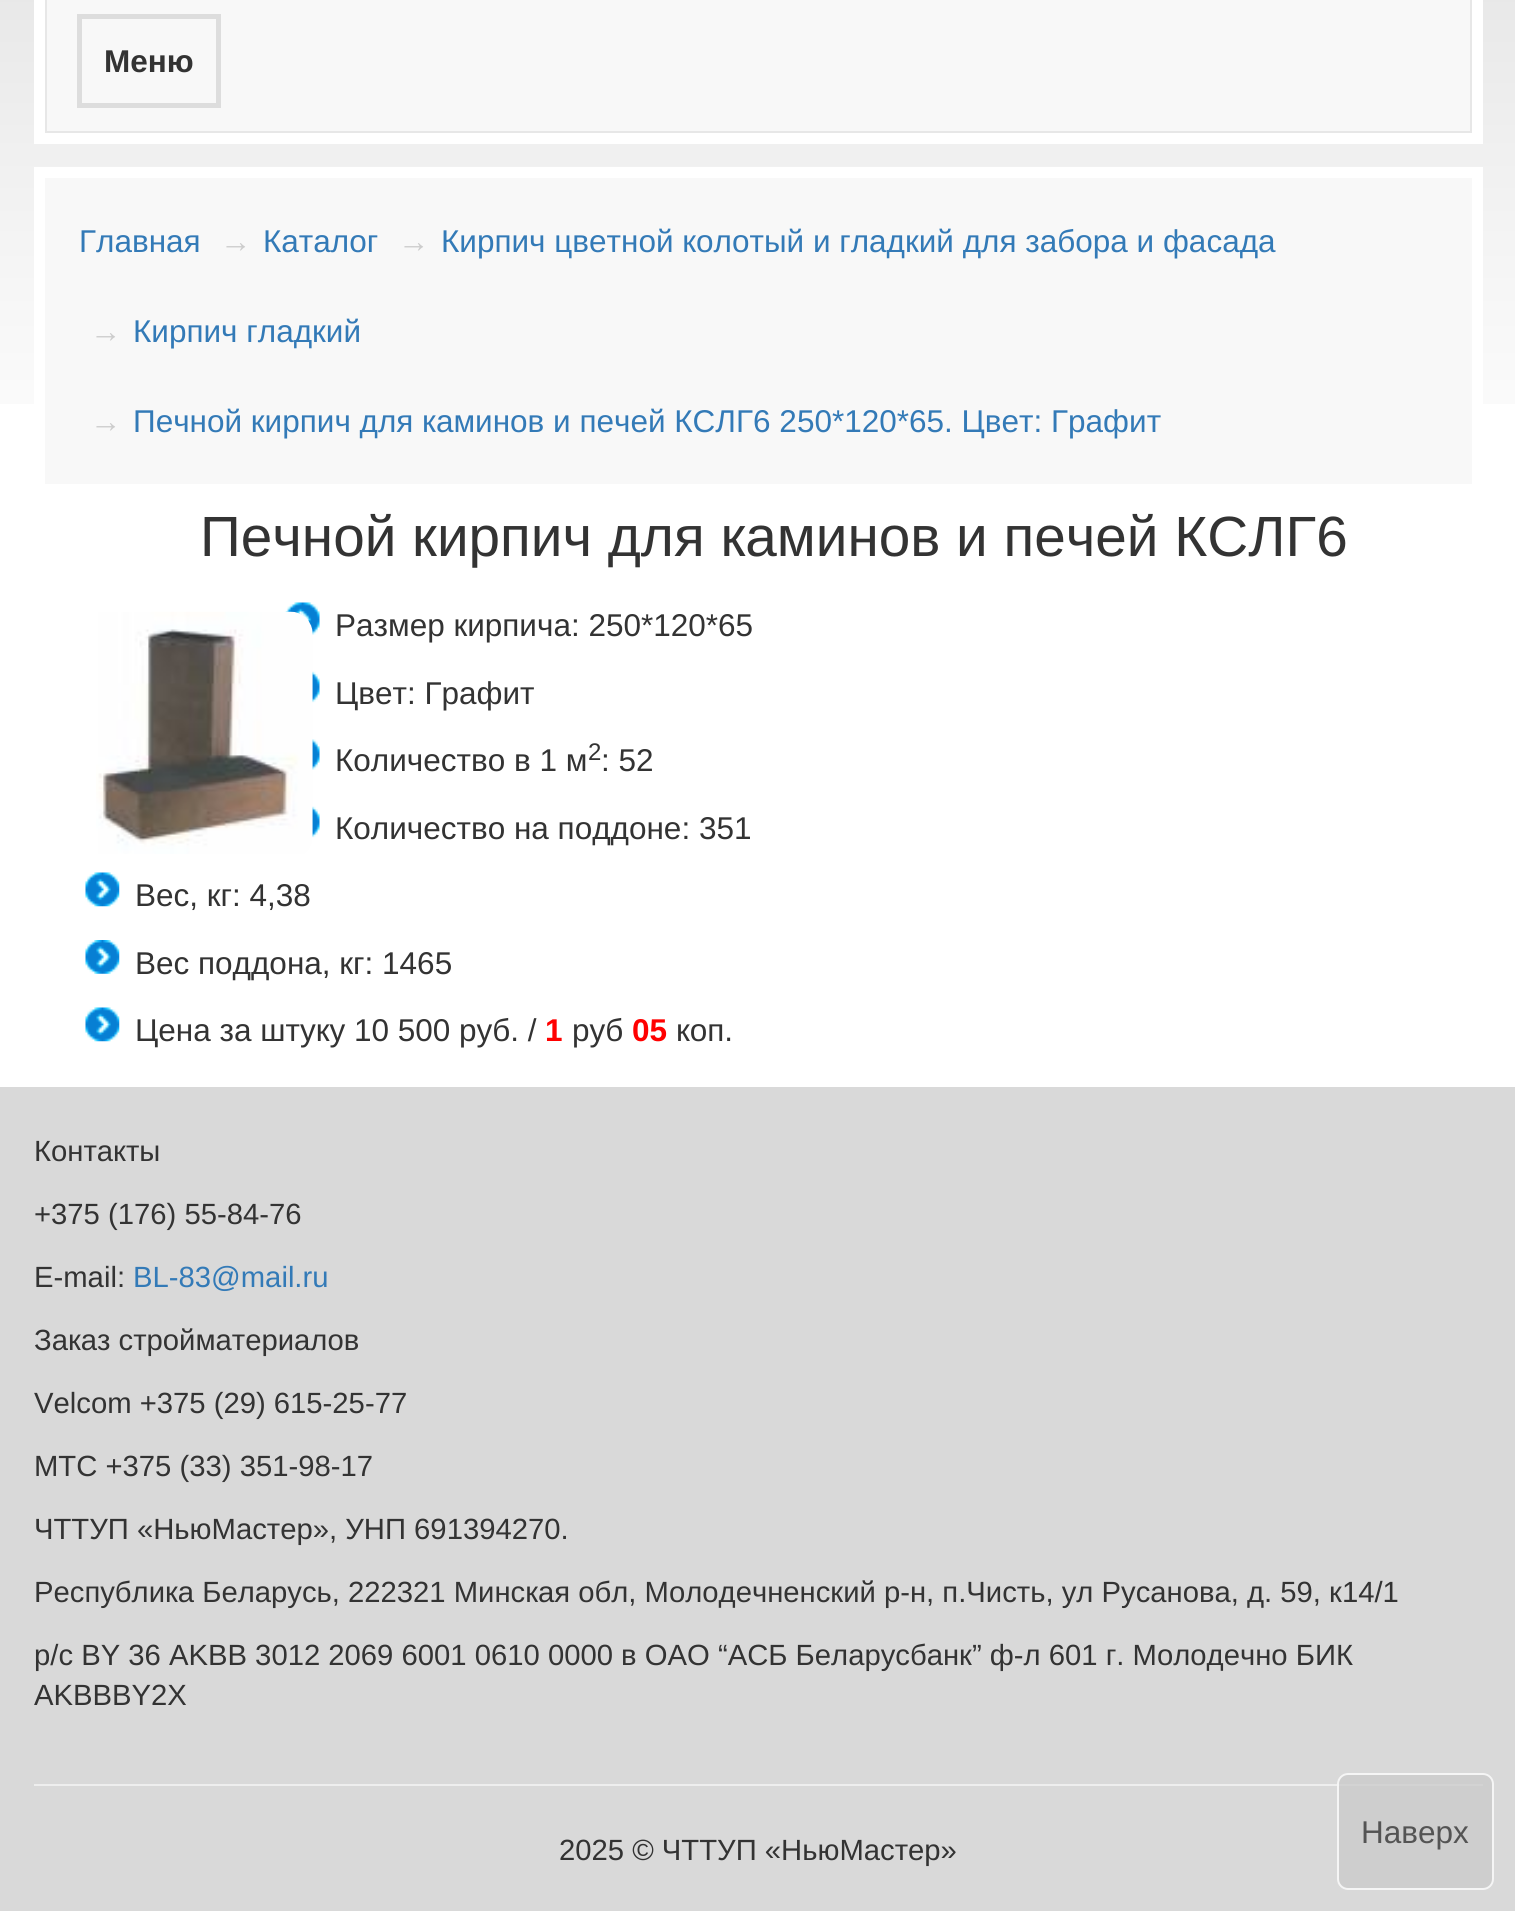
#include <cairo/cairo.h>
#include <math.h>
#include <stddef.h>

typedef struct { double x, y; const char *s; } line_t;
static cairo_t *cr;

static void rgb(unsigned color)
{
	cairo_set_source_rgb(cr, (color >> 16) / 255.0, (color >> 8 & 255) / 255.0, (color & 255) / 255.0);
}

static void rrect(double x, double y, double w, double h, double r)
{
	cairo_new_sub_path(cr);
	cairo_arc(cr, x + w - r, y + h - r, r, 0, M_PI / 2);
	cairo_arc(cr, x + r, y + h - r, r, M_PI / 2, M_PI);
	cairo_arc(cr, x + r, y + r, r, M_PI, 1.5 * M_PI);
	cairo_arc(cr, x + w - r, y + r, r, 1.5 * M_PI, 2 * M_PI);
	cairo_close_path(cr);
}

static void image(const char *path, double x, double y, double w, double h)
{
	cairo_surface_t *image = cairo_image_surface_create_from_png(path);
	cairo_save(cr);
	cairo_set_source_surface(cr, image, x, y);
	cairo_rectangle(cr, x, y, w, h);
	cairo_fill(cr);
	cairo_restore(cr);
	cairo_surface_destroy(image);
}

int main(void) {
	cairo_surface_t *surface = cairo_image_surface_create(CAIRO_FORMAT_RGB24, 1515, 1911);
	cr = cairo_create(surface);
	cairo_font_options_t *options = cairo_font_options_create();
	cairo_font_options_set_hint_metrics(options, CAIRO_HINT_METRICS_OFF);
	cairo_font_options_set_hint_style(options, CAIRO_HINT_STYLE_NONE);
	cairo_set_font_options(cr, options);
	cairo_set_miter_limit(cr, 4);
	rgb(0xffffff);
	cairo_paint(cr);
	image("img/1.png", 0, 0, 1515, 404);
	rgb(0xffffff);
	cairo_rectangle(cr, 34, 0, 1449, 144);
	cairo_fill(cr);
	rgb(0xf8f8f8);
	cairo_rectangle(cr, 46, -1, 1425, 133);
	cairo_fill_preserve(cr);
	rgb(0xe7e7e7);
	cairo_stroke(cr);
	cairo_rectangle(cr, 79.5, 16.5, 139, 89);
	rgb(0xdddddd);
	cairo_set_line_width(cr, 5);
	cairo_stroke(cr);
	rgb(0xffffff);
	cairo_rectangle(cr, 34, 167, 1449, 237);
	cairo_fill(cr);
	rgb(0xf8f8f8);
	cairo_rectangle(cr, 45, 178, 1427, 306);
	cairo_fill(cr);
	image("img/3.png", 285, 602, 35, 35);
	image("img/4.png", 312, 670, 8, 34);
	image("img/5.png", 312, 737, 8, 35);
	image("img/4.png", 312, 805, 8, 34);
	image("img/2.png", 96, 611, 217, 243);
	image("img/6.png", 85, 872, 35, 35);
	image("img/7.png", 85, 940, 35, 34);
	image("img/6.png", 85, 1007, 35, 35);
	rgb(0xd9d9d9);
	cairo_rectangle(cr, 0, 1087, 1515, 824);
	cairo_fill(cr);
	rgb(0xeeeeee);
	cairo_rectangle(cr, 34, 1784, 1449, 2);
	cairo_fill(cr);
	cairo_set_source_rgba(cr, 0.8, 0.8, 0.8, 0.8);
	rrect(1337, 1773, 157, 117, 11);
	cairo_fill(cr);
	rrect(1338, 1774, 155, 115, 10);
	cairo_set_source_rgba(cr, 1, 1, 1, 0.8);
	cairo_set_line_width(cr, 2);
	cairo_stroke(cr);
	cairo_select_font_face(cr, "Liberation Sans", CAIRO_FONT_SLANT_NORMAL, CAIRO_FONT_WEIGHT_BOLD);
	cairo_set_font_size(cr, 31.5);
	rgb(0x333333);
	cairo_move_to(cr, 104, 72);
	cairo_show_text(cr, "Меню");
	cairo_select_font_face(cr, "Liberation Sans", CAIRO_FONT_SLANT_NORMAL, CAIRO_FONT_WEIGHT_NORMAL);
	rgb(0x337ab7);
	cairo_move_to(cr, 79, 252);
	cairo_show_text(cr, "Главная");
	rgb(0xcccccc);
	cairo_move_to(cr, 220, 252);
	cairo_show_text(cr, "→");
	rgb(0x337ab7);
	cairo_move_to(cr, 263, 252);
	cairo_show_text(cr, "Каталог");
	rgb(0xcccccc);
	cairo_move_to(cr, 398, 252);
	cairo_show_text(cr, "→");
	rgb(0x337ab7);
	cairo_move_to(cr, 441, 252);
	cairo_show_text(cr, "Кирпич цветной колотый и гладкий для забора и фасада");
	rgb(0xcccccc);
	cairo_move_to(cr, 90, 342);
	cairo_show_text(cr, "→");
	rgb(0x337ab7);
	cairo_move_to(cr, 133, 342);
	cairo_show_text(cr, "Кирпич гладкий");
	rgb(0xcccccc);
	cairo_move_to(cr, 90, 432);
	cairo_show_text(cr, "→");
	rgb(0x337ab7);
	cairo_move_to(cr, 133, 432);
	cairo_show_text(cr, "Печной кирпич для каминов и печей КСЛГ6 250*120*65. Цвет: Графит");
	cairo_set_font_size(cr, 56.7);
	rgb(0x333333);
	cairo_move_to(cr, 200, 556);
	cairo_show_text(cr, "Печной кирпич для каминов и печей КСЛГ6");
	cairo_set_font_size(cr, 31.5);
	{
		static const line_t items[] = {
			{335, 636, "Размер кирпича: 250*120*65"},
			{335, 704, "Цвет: Графит"},
			{335, 771, "Количество в 1 м"},
		};
		for (size_t i = 0; i < sizeof items / sizeof *items; i++) {
			cairo_move_to(cr, items[i].x, items[i].y);
			cairo_show_text(cr, items[i].s);
		}
	}
	cairo_set_font_size(cr, 24);
	cairo_move_to(cr, 588, 760);
	cairo_show_text(cr, "2");
	cairo_set_font_size(cr, 31.5);
	{
		static const line_t items[] = {
			{601, 771, ": 52"},
			{335, 839, "Количество на поддоне: 351"},
			{135, 906, "Вес, кг: 4,38"},
			{135, 974, "Вес поддона, кг: 1465"},
			{135, 1041, "Цена за штуку 10 500 руб. /"},
		};
		for (size_t i = 0; i < sizeof items / sizeof *items; i++) {
			cairo_move_to(cr, items[i].x, items[i].y);
			cairo_show_text(cr, items[i].s);
		}
	}
	cairo_select_font_face(cr, "Liberation Sans", CAIRO_FONT_SLANT_NORMAL, CAIRO_FONT_WEIGHT_BOLD);
	rgb(0xff0000);
	cairo_move_to(cr, 545, 1041);
	cairo_show_text(cr, "1");
	cairo_select_font_face(cr, "Liberation Sans", CAIRO_FONT_SLANT_NORMAL, CAIRO_FONT_WEIGHT_NORMAL);
	rgb(0x333333);
	cairo_move_to(cr, 572, 1041);
	cairo_show_text(cr, "руб");
	cairo_select_font_face(cr, "Liberation Sans", CAIRO_FONT_SLANT_NORMAL, CAIRO_FONT_WEIGHT_BOLD);
	rgb(0xff0000);
	cairo_move_to(cr, 632, 1041);
	cairo_show_text(cr, "05");
	cairo_select_font_face(cr, "Liberation Sans", CAIRO_FONT_SLANT_NORMAL, CAIRO_FONT_WEIGHT_NORMAL);
	rgb(0x333333);
	cairo_move_to(cr, 676, 1041);
	cairo_show_text(cr, "коп.");
	cairo_set_font_size(cr, 29.25);
	{
		static const line_t items[] = {
			{34, 1161, "Контакты"},
			{34, 1224, "+375 (176) 55-84-76"},
			{34, 1287, "E-mail:"},
		};
		for (size_t i = 0; i < sizeof items / sizeof *items; i++) {
			cairo_move_to(cr, items[i].x, items[i].y);
			cairo_show_text(cr, items[i].s);
		}
	}
	rgb(0x337ab7);
	cairo_move_to(cr, 133, 1287);
	cairo_show_text(cr, "BL-83@mail.ru");
	rgb(0x333333);
	{
		static const line_t items[] = {
			{34, 1350, "Заказ стройматериалов"},
			{34, 1413, "Velcom +375 (29) 615-25-77"},
			{34, 1476, "МТС +375 (33) 351-98-17"},
			{34, 1539, "ЧТТУП «НьюМастер», УНП 691394270."},
			{34, 1602, "Республика Беларусь, 222321 Минская обл, Молодечненский р-н, п.Чисть, ул Русанова, д. 59, к14/1"},
			{34, 1665, "р/с BY 36 AKBB 3012 2069 6001 0610 0000 в ОАО “АСБ Беларусбанк” ф-л 601 г. Молодечно БИК"},
			{34, 1705, "AKBBBY2X"},
			{559, 1860, "2025 © ЧТТУП «НьюМастер»"},
		};
		for (size_t i = 0; i < sizeof items / sizeof *items; i++) {
			cairo_move_to(cr, items[i].x, items[i].y);
			cairo_show_text(cr, items[i].s);
		}
	}
	cairo_set_font_size(cr, 31.5);
	rgb(0x545454);
	cairo_move_to(cr, 1361, 1843);
	cairo_show_text(cr, "Наверх");
	cairo_surface_write_to_png(surface, "page.png");
	cairo_font_options_destroy(options);
	cairo_destroy(cr);
	cairo_surface_destroy(surface);
	return 0;
}
